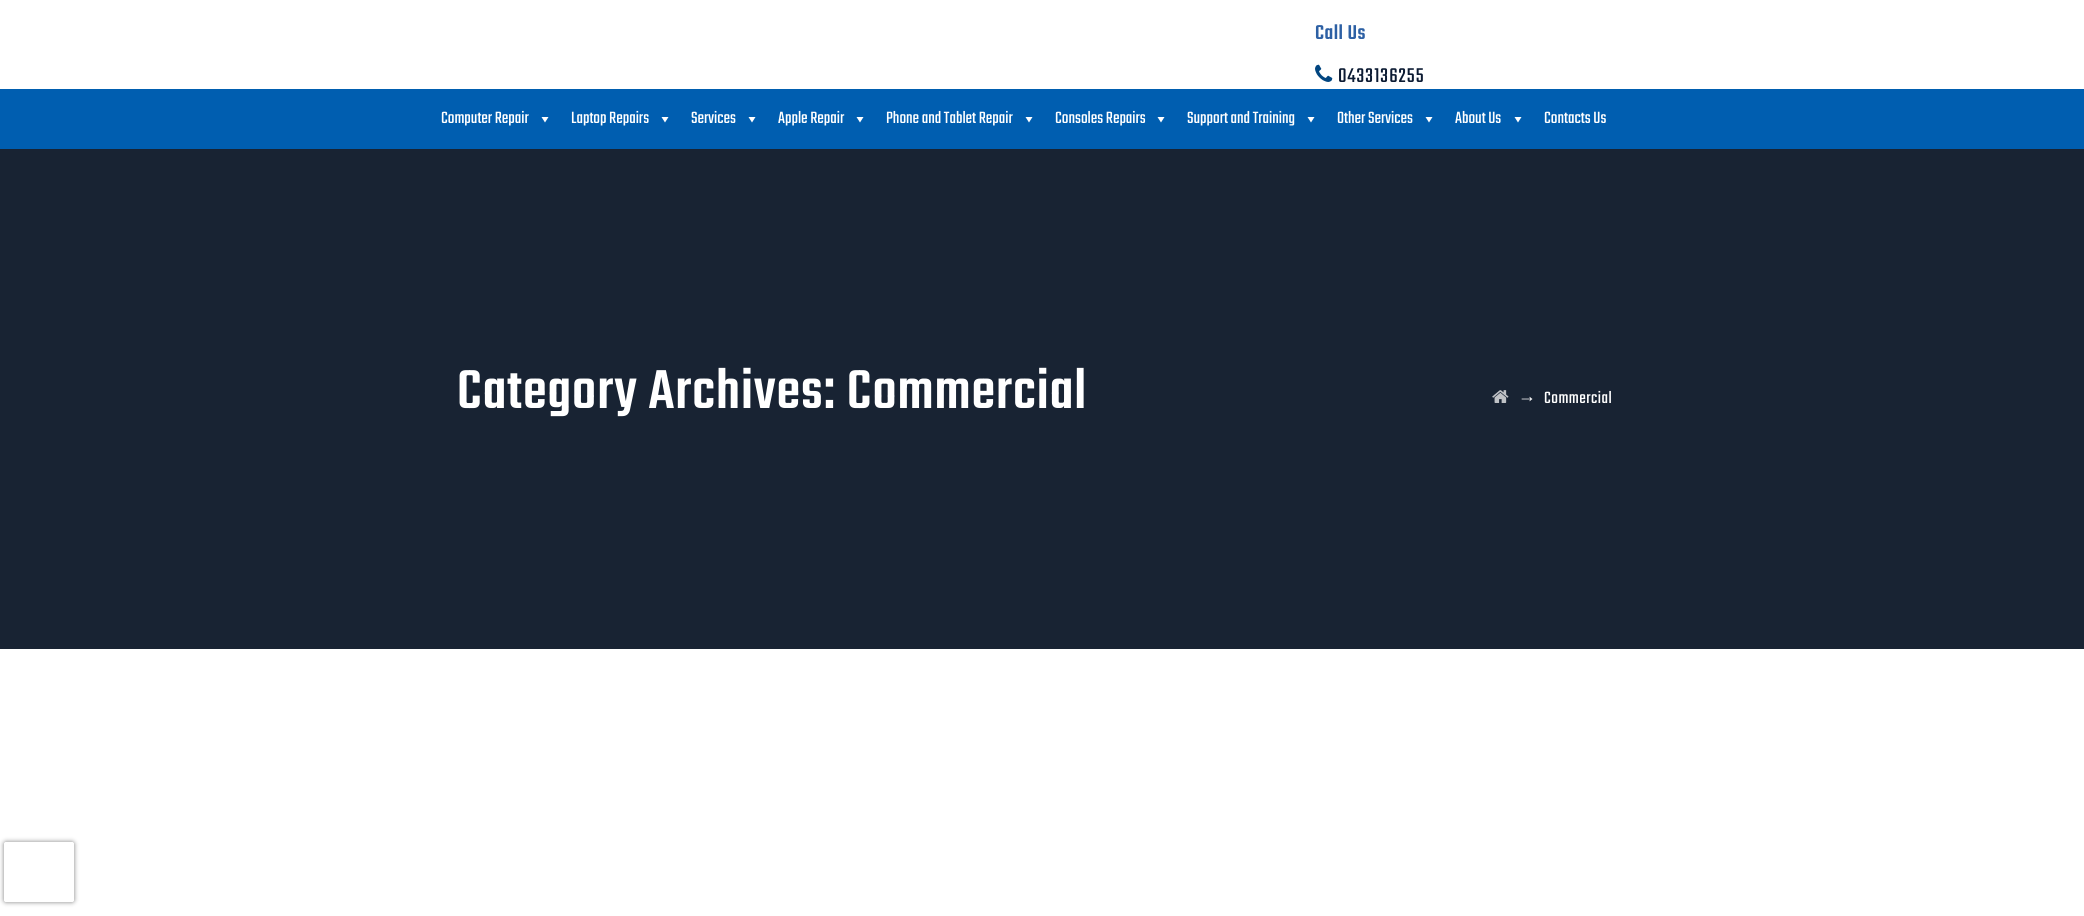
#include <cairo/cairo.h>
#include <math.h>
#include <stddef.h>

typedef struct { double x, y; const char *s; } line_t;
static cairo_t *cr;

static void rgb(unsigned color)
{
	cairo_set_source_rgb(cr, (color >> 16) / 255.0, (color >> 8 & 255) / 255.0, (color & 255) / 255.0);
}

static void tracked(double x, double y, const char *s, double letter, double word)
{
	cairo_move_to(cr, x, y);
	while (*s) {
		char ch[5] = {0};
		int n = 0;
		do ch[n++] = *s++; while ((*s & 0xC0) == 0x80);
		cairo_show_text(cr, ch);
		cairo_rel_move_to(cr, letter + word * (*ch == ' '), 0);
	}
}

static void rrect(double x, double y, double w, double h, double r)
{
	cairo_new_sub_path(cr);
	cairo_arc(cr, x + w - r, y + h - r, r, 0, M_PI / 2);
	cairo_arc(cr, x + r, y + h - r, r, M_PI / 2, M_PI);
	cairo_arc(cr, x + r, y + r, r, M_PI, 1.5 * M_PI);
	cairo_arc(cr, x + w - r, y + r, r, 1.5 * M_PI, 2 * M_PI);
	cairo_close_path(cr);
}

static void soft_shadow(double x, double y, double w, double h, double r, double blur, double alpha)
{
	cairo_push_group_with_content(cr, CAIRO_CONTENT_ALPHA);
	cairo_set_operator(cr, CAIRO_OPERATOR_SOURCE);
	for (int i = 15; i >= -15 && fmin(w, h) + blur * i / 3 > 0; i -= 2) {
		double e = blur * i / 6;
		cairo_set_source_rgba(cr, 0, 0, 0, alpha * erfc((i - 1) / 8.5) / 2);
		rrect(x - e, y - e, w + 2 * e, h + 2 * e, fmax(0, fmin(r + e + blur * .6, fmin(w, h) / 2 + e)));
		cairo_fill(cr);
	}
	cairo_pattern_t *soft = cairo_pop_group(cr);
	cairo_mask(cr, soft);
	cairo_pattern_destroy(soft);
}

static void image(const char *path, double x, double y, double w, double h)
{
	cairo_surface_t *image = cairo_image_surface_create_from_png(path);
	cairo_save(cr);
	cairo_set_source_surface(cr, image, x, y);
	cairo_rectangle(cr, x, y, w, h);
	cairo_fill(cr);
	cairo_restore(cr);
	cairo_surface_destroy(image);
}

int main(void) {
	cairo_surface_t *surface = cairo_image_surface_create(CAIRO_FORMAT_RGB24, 2084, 916);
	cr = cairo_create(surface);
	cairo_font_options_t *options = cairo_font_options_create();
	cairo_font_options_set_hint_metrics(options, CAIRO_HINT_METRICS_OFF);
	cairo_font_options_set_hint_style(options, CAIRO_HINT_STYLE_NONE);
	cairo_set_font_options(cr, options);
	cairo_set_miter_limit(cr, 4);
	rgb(0xffffff);
	cairo_paint(cr);
	image("img/1.png", 1315, 64, 18, 18);
	rgb(0x005eb0);
	cairo_rectangle(cr, 0, 89, 2084, 60);
	cairo_fill(cr);
	rgb(0xffffff);
	cairo_new_path(cr);
	cairo_move_to(cr, 548.5, 117);
	cairo_line_to(cr, 545, 122.5);
	cairo_line_to(cr, 541.5, 117);
	cairo_close_path(cr);
	cairo_fill(cr);
	cairo_new_path(cr);
	cairo_move_to(cr, 668.5, 117);
	cairo_line_to(cr, 665, 122.5);
	cairo_line_to(cr, 661.5, 117);
	cairo_close_path(cr);
	cairo_fill(cr);
	cairo_new_path(cr);
	cairo_move_to(cr, 755.5, 117);
	cairo_line_to(cr, 752, 122.5);
	cairo_line_to(cr, 748.5, 117);
	cairo_close_path(cr);
	cairo_fill(cr);
	cairo_new_path(cr);
	cairo_move_to(cr, 863.5, 117);
	cairo_line_to(cr, 860, 122.5);
	cairo_line_to(cr, 856.5, 117);
	cairo_close_path(cr);
	cairo_fill(cr);
	cairo_new_path(cr);
	cairo_move_to(cr, 1032.5, 117);
	cairo_line_to(cr, 1029, 122.5);
	cairo_line_to(cr, 1025.5, 117);
	cairo_close_path(cr);
	cairo_fill(cr);
	cairo_new_path(cr);
	cairo_move_to(cr, 1164.5, 117);
	cairo_line_to(cr, 1161, 122.5);
	cairo_line_to(cr, 1157.5, 117);
	cairo_close_path(cr);
	cairo_fill(cr);
	cairo_new_path(cr);
	cairo_move_to(cr, 1314.5, 117);
	cairo_line_to(cr, 1311, 122.5);
	cairo_line_to(cr, 1307.5, 117);
	cairo_close_path(cr);
	cairo_fill(cr);
	cairo_new_path(cr);
	cairo_move_to(cr, 1432.5, 117);
	cairo_line_to(cr, 1429, 122.5);
	cairo_line_to(cr, 1425.5, 117);
	cairo_close_path(cr);
	cairo_fill(cr);
	cairo_new_path(cr);
	cairo_move_to(cr, 1521.5, 117);
	cairo_line_to(cr, 1518, 122.5);
	cairo_line_to(cr, 1514.5, 117);
	cairo_close_path(cr);
	cairo_fill(cr);
	rgb(0x182333);
	cairo_rectangle(cr, 0, 149, 2084, 500);
	cairo_fill(cr);
	image("img/2.png", 1492, 390, 17, 13);
	cairo_save(cr);
	cairo_set_fill_rule(cr, CAIRO_FILL_RULE_EVEN_ODD);
	cairo_new_path(cr);
	cairo_move_to(cr, 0, 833);
	cairo_line_to(cr, 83, 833);
	cairo_line_to(cr, 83, 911);
	cairo_line_to(cr, 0, 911);
	cairo_close_path(cr);
	cairo_move_to(cr, 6, 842);
	cairo_line_to(cr, 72, 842);
	cairo_curve_to(cr, 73, 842, 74, 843, 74, 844);
	cairo_line_to(cr, 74, 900);
	cairo_curve_to(cr, 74, 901, 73, 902, 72, 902);
	cairo_line_to(cr, 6, 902);
	cairo_curve_to(cr, 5, 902, 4, 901, 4, 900);
	cairo_line_to(cr, 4, 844);
	cairo_curve_to(cr, 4, 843, 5, 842, 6, 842);
	cairo_close_path(cr);
	cairo_clip(cr);
	rgb(0x808080);
	soft_shadow(4, 842, 70, 60, 2, 2.5, 1);
	cairo_restore(cr);
	cairo_select_font_face(cr, "Teko Medium", CAIRO_FONT_SLANT_NORMAL, CAIRO_FONT_WEIGHT_NORMAL);
	cairo_set_font_size(cr, 22);
	rgb(0x2d60a4);
	tracked(1315, 39, "Call Us", 0.5, 0);
	cairo_select_font_face(cr, "Teko", CAIRO_FONT_SLANT_NORMAL, CAIRO_FONT_WEIGHT_NORMAL);
	rgb(0x0c1b33);
	tracked(1338, 82, "0433136255", 1, 0);
	cairo_set_font_size(cr, 18);
	rgb(0xffffff);
	{
		static const line_t items[] = {
			{441, 123, "Computer Repair"},
			{571, 123, "Laptop Repairs"},
			{691, 123, "Services"},
			{778, 123, "Apple Repair"},
			{886, 123, "Phone and Tablet Repair"},
			{1055, 123, "Consoles Repairs"},
			{1187, 123, "Support and Training"},
			{1337, 123, "Other Services"},
			{1455, 123, "About Us"},
			{1544, 123, "Contacts Us"},
		};
		for (size_t i = 0; i < sizeof items / sizeof *items; i++) {
			cairo_move_to(cr, items[i].x, items[i].y);
			cairo_show_text(cr, items[i].s);
		}
	}
	cairo_select_font_face(cr, "Teko Medium", CAIRO_FONT_SLANT_NORMAL, CAIRO_FONT_WEIGHT_NORMAL);
	cairo_set_font_size(cr, 60);
	tracked(457, 408, "Category Archives: Commercial", 1, 0);
	cairo_select_font_face(cr, "Liberation Sans", CAIRO_FONT_SLANT_NORMAL, CAIRO_FONT_WEIGHT_NORMAL);
	cairo_set_font_size(cr, 18);
	tracked(1518, 402, "→", 0.5, 0);
	cairo_select_font_face(cr, "Teko", CAIRO_FONT_SLANT_NORMAL, CAIRO_FONT_WEIGHT_NORMAL);
	tracked(1544, 403, "Commercial", 0.5, 0);
	cairo_surface_write_to_png(surface, "page.png");
	cairo_font_options_destroy(options);
	cairo_destroy(cr);
	cairo_surface_destroy(surface);
	return 0;
}
